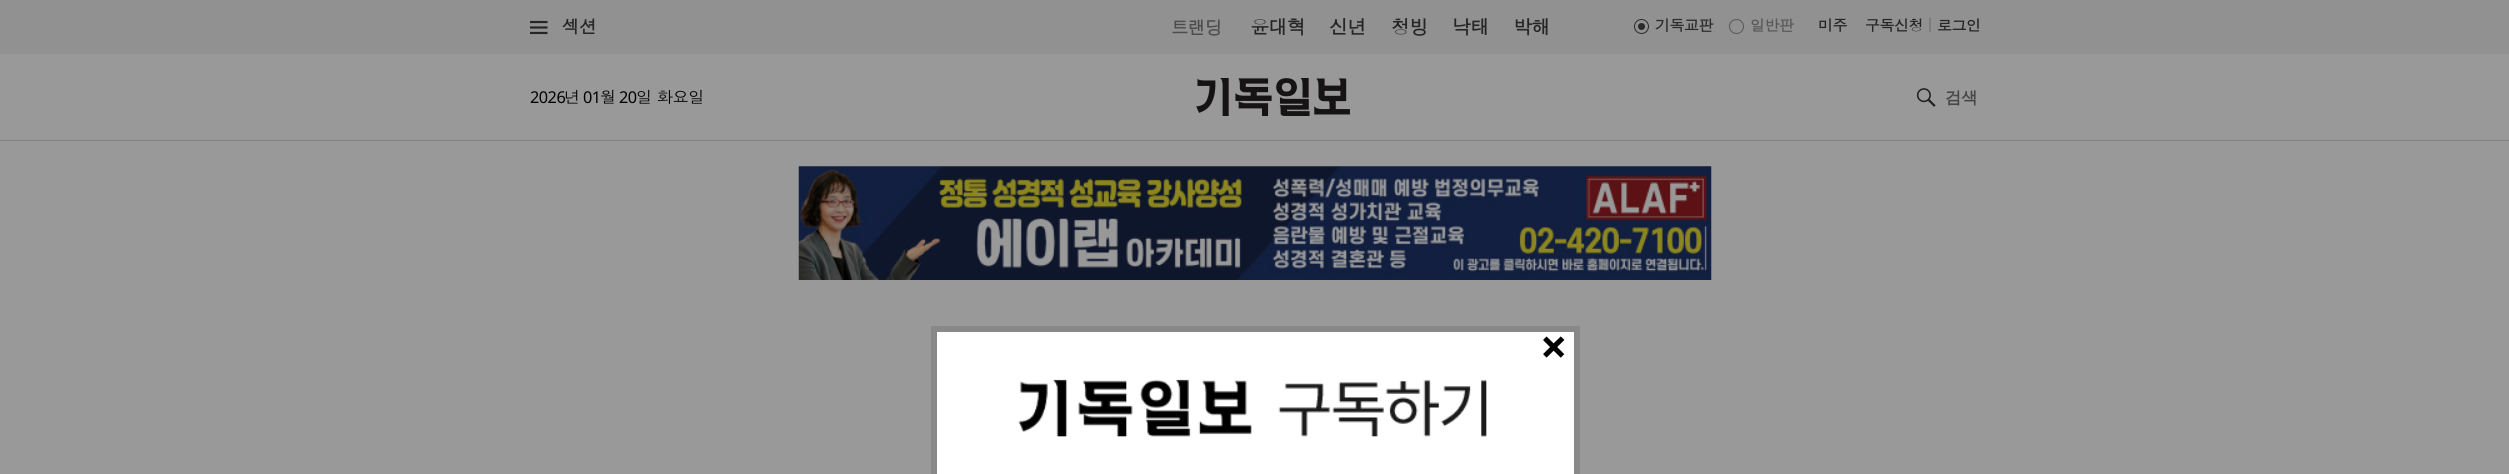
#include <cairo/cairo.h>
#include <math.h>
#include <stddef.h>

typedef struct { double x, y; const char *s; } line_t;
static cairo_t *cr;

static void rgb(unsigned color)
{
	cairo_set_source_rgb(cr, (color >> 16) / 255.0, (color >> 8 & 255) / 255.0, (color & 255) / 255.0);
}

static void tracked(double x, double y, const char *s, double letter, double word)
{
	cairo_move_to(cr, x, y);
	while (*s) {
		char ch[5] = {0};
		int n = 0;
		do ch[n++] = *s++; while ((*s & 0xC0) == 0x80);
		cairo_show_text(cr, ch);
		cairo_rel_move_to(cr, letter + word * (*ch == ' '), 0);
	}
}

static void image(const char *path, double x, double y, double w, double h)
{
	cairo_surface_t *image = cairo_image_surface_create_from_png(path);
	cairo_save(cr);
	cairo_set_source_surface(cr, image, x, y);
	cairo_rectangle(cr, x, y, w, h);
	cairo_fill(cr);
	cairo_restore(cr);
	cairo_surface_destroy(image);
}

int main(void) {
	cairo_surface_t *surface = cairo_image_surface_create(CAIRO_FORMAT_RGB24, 2509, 474);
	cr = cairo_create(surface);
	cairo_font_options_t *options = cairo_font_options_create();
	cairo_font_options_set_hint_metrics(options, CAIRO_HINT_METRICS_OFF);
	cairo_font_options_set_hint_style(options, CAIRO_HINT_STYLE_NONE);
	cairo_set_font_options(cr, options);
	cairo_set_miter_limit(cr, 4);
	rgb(0x999999);
	cairo_paint(cr);
	rgb(0x919191);
	cairo_rectangle(cr, 0, 0, 2509, 54);
	cairo_fill(cr);
	image("img/1.png", 530, 20, 18, 15);
	cairo_arc(cr, 1641.5, 26.5, 7, 0, 2 * M_PI);
	rgb(0x2b2b2b);
	cairo_set_line_width(cr, 1);
	cairo_stroke(cr);
	cairo_arc(cr, 1641.5, 26.5, 3.5, 0, 2 * M_PI);
	cairo_fill(cr);
	cairo_arc(cr, 1736.5, 26.5, 7, 0, 2 * M_PI);
	rgb(0x585858);
	cairo_stroke(cr);
	rgb(0x828282);
	cairo_rectangle(cr, 0, 140, 2509, 1);
	cairo_fill(cr);
	image("img/2.png", 1196, 78, 154, 38);
	image("img/3.png", 1916, 88, 20, 19);
	image("img/4.png", 798, 166, 914, 114);
	rgb(0xffffff);
	cairo_rectangle(cr, 934, 329, 643, 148);
	cairo_fill_preserve(cr);
	rgb(0x888888);
	cairo_set_line_width(cr, 6);
	cairo_stroke(cr);
	image("img/5.png", 1018, 379, 469, 58);
	cairo_select_font_face(cr, "Dotum", CAIRO_FONT_SLANT_NORMAL, CAIRO_FONT_WEIGHT_BOLD);
	cairo_set_font_size(cr, 17.5);
	rgb(0x252525);
	cairo_move_to(cr, 562, 33);
	cairo_show_text(cr, "섹션");
	rgb(0x4c4c4c);
	tracked(1171, 34, "트랜딩", -0.5, 0);
	cairo_set_font_size(cr, 19);
	rgb(0x252525);
	{
		static const line_t items[] = {
			{1250, 34, "윤대혁"},
			{1329, 34, "신년"},
			{1391, 34, "청빙"},
			{1452, 34, "낙태"},
			{1513, 34, "박해"},
		};
		for (size_t i = 0; i < sizeof items / sizeof *items; i++) {
			tracked(items[i].x, items[i].y, items[i].s, -0.5, 0);
		}
	}
	cairo_set_font_size(cr, 15);
	rgb(0x2b2b2b);
	tracked(1655, 31, "기독교판", -0.5, 0);
	rgb(0x585858);
	tracked(1750, 31, "일반판", -0.5, 0);
	rgb(0x252525);
	tracked(1818, 31, "미주", -0.5, 0);
	tracked(1865, 31, "구독신청", -0.5, 0);
	cairo_select_font_face(cr, "Noto Sans ExtraBold", CAIRO_FONT_SLANT_NORMAL, CAIRO_FONT_WEIGHT_NORMAL);
	rgb(0x7a7a7a);
	tracked(1926, 29, "|", -0.5, 0);
	cairo_select_font_face(cr, "Dotum", CAIRO_FONT_SLANT_NORMAL, CAIRO_FONT_WEIGHT_BOLD);
	rgb(0x252525);
	tracked(1937, 31, "로그인", -0.5, 0);
	cairo_select_font_face(cr, "Noto Sans", CAIRO_FONT_SLANT_NORMAL, CAIRO_FONT_WEIGHT_NORMAL);
	cairo_set_font_size(cr, 16.25);
	rgb(0x010101);
	tracked(530, 103, "2026", -0.5, 0);
	cairo_select_font_face(cr, "Dotum", CAIRO_FONT_SLANT_NORMAL, CAIRO_FONT_WEIGHT_NORMAL);
	tracked(564, 103, "년", -0.5, 0);
	cairo_select_font_face(cr, "Noto Sans", CAIRO_FONT_SLANT_NORMAL, CAIRO_FONT_WEIGHT_NORMAL);
	tracked(583, 103, "01", -0.5, 0);
	cairo_select_font_face(cr, "Dotum", CAIRO_FONT_SLANT_NORMAL, CAIRO_FONT_WEIGHT_NORMAL);
	tracked(600, 103, "월", -0.5, 0);
	cairo_select_font_face(cr, "Noto Sans", CAIRO_FONT_SLANT_NORMAL, CAIRO_FONT_WEIGHT_NORMAL);
	tracked(619, 103, "20", -0.5, 0);
	cairo_select_font_face(cr, "Dotum", CAIRO_FONT_SLANT_NORMAL, CAIRO_FONT_WEIGHT_NORMAL);
	tracked(636, 103, "일 화요일", -0.5, 0);
	cairo_select_font_face(cr, "WenQuanYi Zen Hei", CAIRO_FONT_SLANT_NORMAL, CAIRO_FONT_WEIGHT_BOLD);
	rgb(0x464646);
	cairo_move_to(cr, 1945, 103);
	cairo_show_text(cr, "검색");
	cairo_select_font_face(cr, "Noto Sans", CAIRO_FONT_SLANT_NORMAL, CAIRO_FONT_WEIGHT_BOLD);
	cairo_set_font_size(cr, 48);
	rgb(0x010101);
	tracked(1540, 364, "×", -0.5, 0);
	cairo_surface_write_to_png(surface, "page.png");
	cairo_font_options_destroy(options);
	cairo_destroy(cr);
	cairo_surface_destroy(surface);
	return 0;
}
